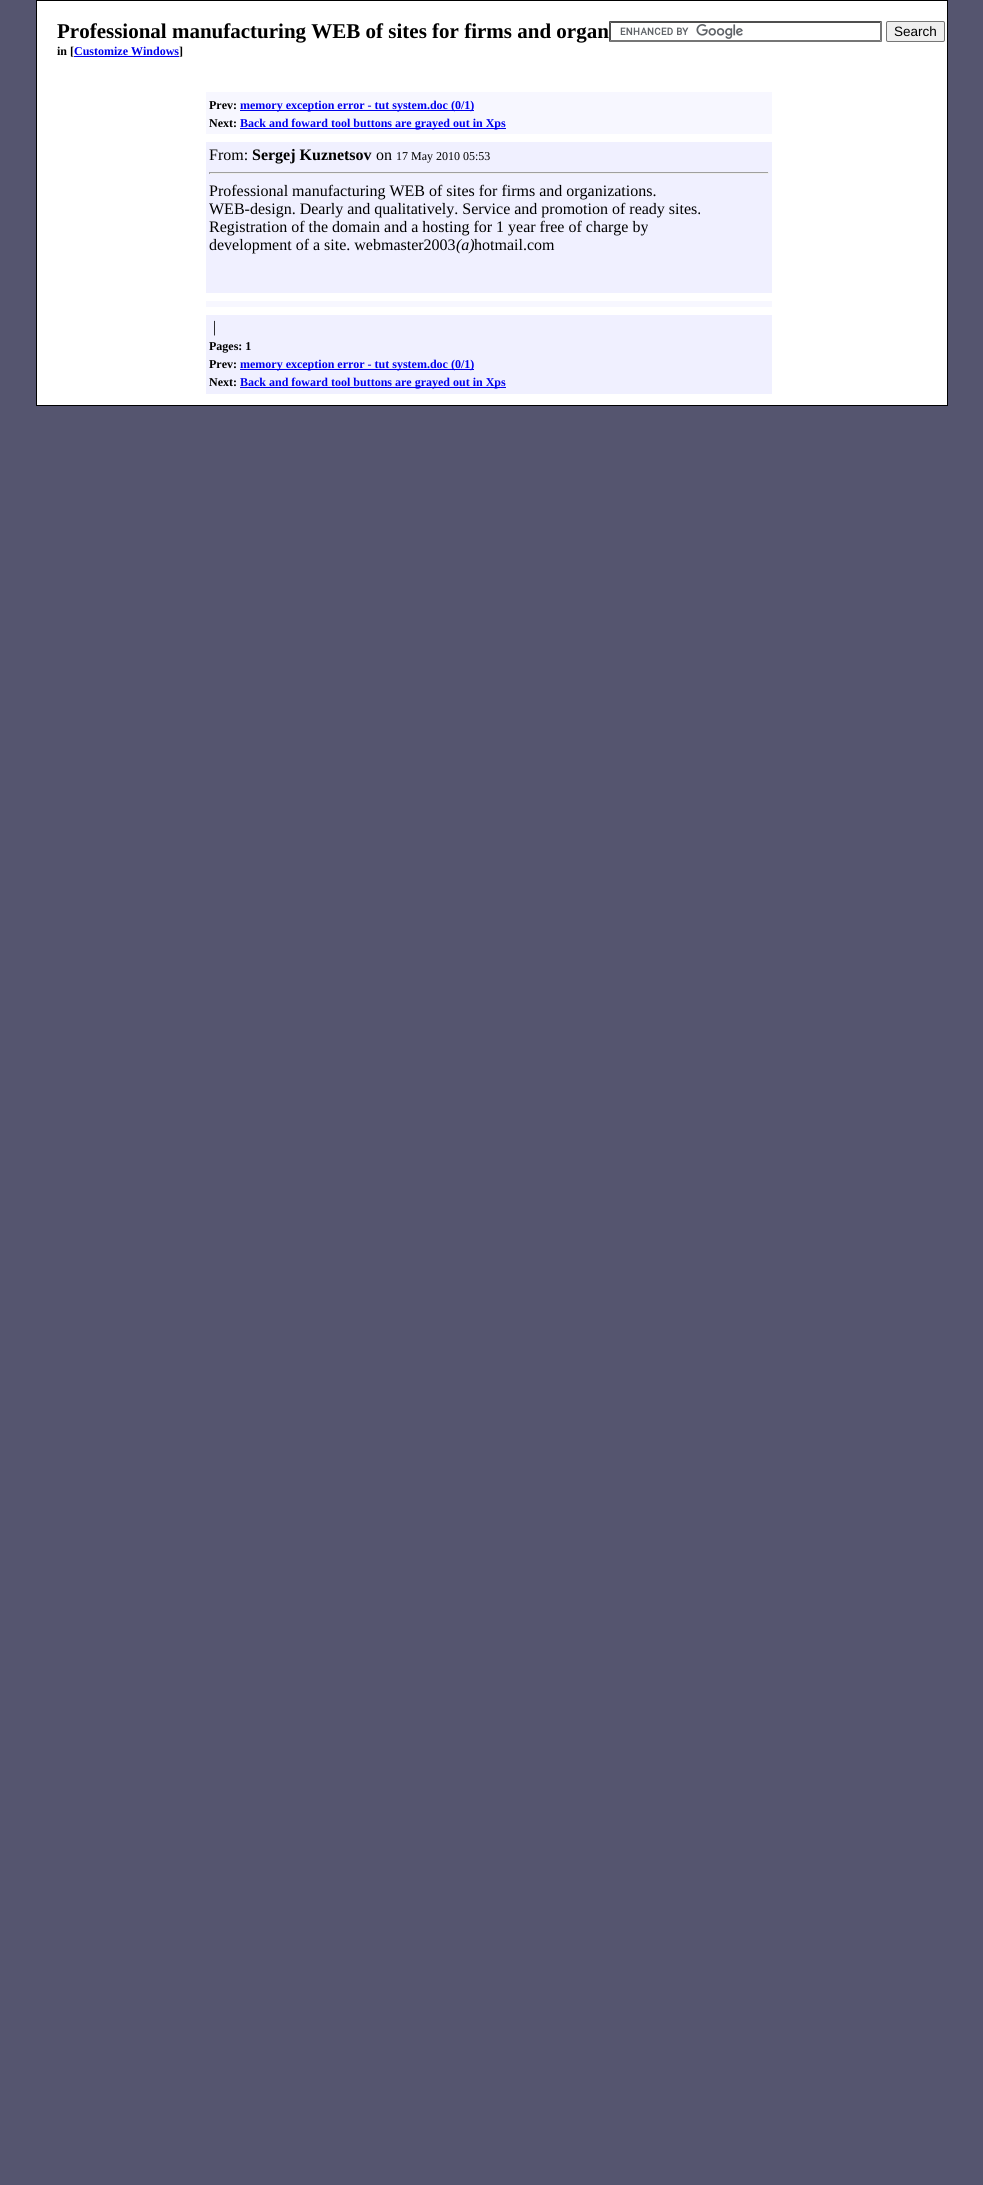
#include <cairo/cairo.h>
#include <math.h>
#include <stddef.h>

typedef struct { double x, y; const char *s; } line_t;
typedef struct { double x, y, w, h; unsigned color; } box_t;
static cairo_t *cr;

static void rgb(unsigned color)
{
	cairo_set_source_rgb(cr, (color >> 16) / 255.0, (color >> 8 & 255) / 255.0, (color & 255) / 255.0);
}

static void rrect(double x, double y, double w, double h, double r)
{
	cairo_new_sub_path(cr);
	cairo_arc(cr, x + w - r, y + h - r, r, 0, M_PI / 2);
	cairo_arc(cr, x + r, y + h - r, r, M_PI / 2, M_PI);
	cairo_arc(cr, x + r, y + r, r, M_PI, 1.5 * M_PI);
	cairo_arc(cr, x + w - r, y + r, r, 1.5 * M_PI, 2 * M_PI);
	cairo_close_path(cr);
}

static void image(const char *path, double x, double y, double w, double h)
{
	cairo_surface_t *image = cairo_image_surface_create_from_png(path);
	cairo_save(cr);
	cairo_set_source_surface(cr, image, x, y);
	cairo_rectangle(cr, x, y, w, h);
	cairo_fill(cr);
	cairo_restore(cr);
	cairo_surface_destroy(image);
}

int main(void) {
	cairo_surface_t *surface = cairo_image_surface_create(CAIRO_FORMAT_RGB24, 983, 2185);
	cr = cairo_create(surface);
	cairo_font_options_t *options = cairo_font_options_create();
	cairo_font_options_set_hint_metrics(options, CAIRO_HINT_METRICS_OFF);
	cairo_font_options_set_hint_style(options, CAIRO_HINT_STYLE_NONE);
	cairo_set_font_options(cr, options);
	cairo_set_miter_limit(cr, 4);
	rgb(0x55556f);
	cairo_paint(cr);
	rgb(0xffffff);
	cairo_rectangle(cr, 36.5, 0.5, 911, 405);
	cairo_fill_preserve(cr);
	rgb(0x000000);
	cairo_set_line_width(cr, 1);
	cairo_stroke(cr);
	rgb(0x0000ee);
	cairo_rectangle(cr, 74, 56, 105, 1);
	cairo_fill(cr);
	image("img/1.png", 620, 24, 123, 15);
	rgb(0x4f4f4f);
	cairo_new_path(cr);
	cairo_move_to(cr, 609, 21);
	cairo_line_to(cr, 882, 21);
	cairo_line_to(cr, 880, 23);
	cairo_line_to(cr, 611, 23);
	cairo_close_path(cr);
	cairo_fill(cr);
	rgb(0x767676);
	cairo_new_path(cr);
	cairo_move_to(cr, 882, 21);
	cairo_line_to(cr, 882, 42);
	cairo_line_to(cr, 880, 40);
	cairo_line_to(cr, 880, 23);
	cairo_close_path(cr);
	cairo_fill(cr);
	cairo_new_path(cr);
	cairo_move_to(cr, 882, 42);
	cairo_line_to(cr, 609, 42);
	cairo_line_to(cr, 611, 40);
	cairo_line_to(cr, 880, 40);
	cairo_close_path(cr);
	cairo_fill(cr);
	rgb(0x4f4f4f);
	cairo_new_path(cr);
	cairo_move_to(cr, 609, 42);
	cairo_line_to(cr, 609, 21);
	cairo_line_to(cr, 611, 23);
	cairo_line_to(cr, 611, 40);
	cairo_close_path(cr);
	cairo_fill(cr);
	rgb(0xefefef);
	rrect(886.5, 21.5, 58, 20, 1.5);
	cairo_fill_preserve(cr);
	rgb(0x767676);
	cairo_stroke(cr);
	{
		static const box_t items[] = {
			{206, 92, 566, 42, 0xf7f7ff},
			{240, 110, 234, 1, 0x0000ee},
			{240, 128, 266, 1, 0x0000ee},
			{206, 142, 566, 151, 0xf0f0ff},
			{209, 172, 560, 1, 0x9f9f9f},
			{768, 172, 1, 2, 0xeeeeee},
			{209, 173, 560, 1, 0xeeeeee},
			{209, 172, 1, 2, 0x9f9f9f},
			{206, 301, 566, 6, 0xf7f7ff},
			{206, 315, 566, 79, 0xf0f0ff},
			{240, 369, 234, 1, 0x0000ee},
			{240, 387, 266, 1, 0x0000ee},
		};
		for (size_t i = 0; i < sizeof items / sizeof *items; i++) {
			rgb(items[i].color);
			cairo_rectangle(cr, items[i].x, items[i].y, items[i].w, items[i].h);
			cairo_fill(cr);
		}
	}
	cairo_select_font_face(cr, "Liberation Serif", CAIRO_FONT_SLANT_NORMAL, CAIRO_FONT_WEIGHT_BOLD);
	cairo_set_font_size(cr, 21);
	rgb(0x000000);
	cairo_move_to(cr, 57, 38);
	cairo_show_text(cr, "Professional manufacturing WEB of sites for firms and organ");
	cairo_set_font_size(cr, 12);
	cairo_move_to(cr, 57, 55);
	cairo_show_text(cr, "in [");
	rgb(0x0000ee);
	cairo_move_to(cr, 74, 55);
	cairo_show_text(cr, "Customize Windows");
	rgb(0x000000);
	cairo_move_to(cr, 179, 55);
	cairo_show_text(cr, "]");
	cairo_select_font_face(cr, "Liberation Sans", CAIRO_FONT_SLANT_NORMAL, CAIRO_FONT_WEIGHT_NORMAL);
	cairo_set_font_size(cr, 13.5);
	cairo_move_to(cr, 894, 36);
	cairo_show_text(cr, "Search");
	cairo_select_font_face(cr, "Liberation Serif", CAIRO_FONT_SLANT_NORMAL, CAIRO_FONT_WEIGHT_BOLD);
	cairo_set_font_size(cr, 12);
	cairo_move_to(cr, 209, 109);
	cairo_show_text(cr, "Prev:");
	rgb(0x0000ee);
	cairo_move_to(cr, 240, 109);
	cairo_show_text(cr, "memory exception error - tut system.doc (0/1)");
	rgb(0x000000);
	cairo_move_to(cr, 209, 127);
	cairo_show_text(cr, "Next:");
	rgb(0x0000ee);
	cairo_move_to(cr, 240, 127);
	cairo_show_text(cr, "Back and foward tool buttons are grayed out in Xps");
	cairo_select_font_face(cr, "Liberation Serif", CAIRO_FONT_SLANT_NORMAL, CAIRO_FONT_WEIGHT_NORMAL);
	cairo_set_font_size(cr, 16);
	rgb(0x000000);
	cairo_move_to(cr, 209, 160);
	cairo_show_text(cr, "From:");
	cairo_select_font_face(cr, "Liberation Serif", CAIRO_FONT_SLANT_NORMAL, CAIRO_FONT_WEIGHT_BOLD);
	cairo_move_to(cr, 252, 160);
	cairo_show_text(cr, "Sergej Kuznetsov");
	cairo_select_font_face(cr, "Liberation Serif", CAIRO_FONT_SLANT_NORMAL, CAIRO_FONT_WEIGHT_NORMAL);
	cairo_move_to(cr, 376, 160);
	cairo_show_text(cr, "on");
	cairo_set_font_size(cr, 12);
	cairo_move_to(cr, 396, 160);
	cairo_show_text(cr, "17 May 2010 05:53");
	cairo_set_font_size(cr, 16);
	{
		static const line_t items[] = {
			{209, 196, "Professional manufacturing WEB of sites for firms and organizations."},
			{209, 214, "WEB-design. Dearly and qualitatively. Service and promotion of ready sites."},
			{209, 232, "Registration of the domain and a hosting for 1 year free of charge by"},
			{209, 250, "development of a site. webmaster2003"},
		};
		for (size_t i = 0; i < sizeof items / sizeof *items; i++) {
			cairo_move_to(cr, items[i].x, items[i].y);
			cairo_show_text(cr, items[i].s);
		}
	}
	cairo_select_font_face(cr, "Liberation Serif", CAIRO_FONT_SLANT_ITALIC, CAIRO_FONT_WEIGHT_NORMAL);
	cairo_move_to(cr, 456, 250);
	cairo_show_text(cr, "(a)");
	cairo_select_font_face(cr, "Liberation Serif", CAIRO_FONT_SLANT_NORMAL, CAIRO_FONT_WEIGHT_NORMAL);
	cairo_move_to(cr, 474, 250);
	cairo_show_text(cr, "hotmail.com");
	cairo_move_to(cr, 213, 332);
	cairo_show_text(cr, "|");
	cairo_select_font_face(cr, "Liberation Serif", CAIRO_FONT_SLANT_NORMAL, CAIRO_FONT_WEIGHT_BOLD);
	cairo_set_font_size(cr, 12);
	cairo_move_to(cr, 209, 350);
	cairo_show_text(cr, "Pages: 1");
	cairo_move_to(cr, 209, 368);
	cairo_show_text(cr, "Prev:");
	rgb(0x0000ee);
	cairo_move_to(cr, 240, 368);
	cairo_show_text(cr, "memory exception error - tut system.doc (0/1)");
	rgb(0x000000);
	cairo_move_to(cr, 209, 386);
	cairo_show_text(cr, "Next:");
	rgb(0x0000ee);
	cairo_move_to(cr, 240, 386);
	cairo_show_text(cr, "Back and foward tool buttons are grayed out in Xps");
	cairo_surface_write_to_png(surface, "page.png");
	cairo_font_options_destroy(options);
	cairo_destroy(cr);
	cairo_surface_destroy(surface);
	return 0;
}
